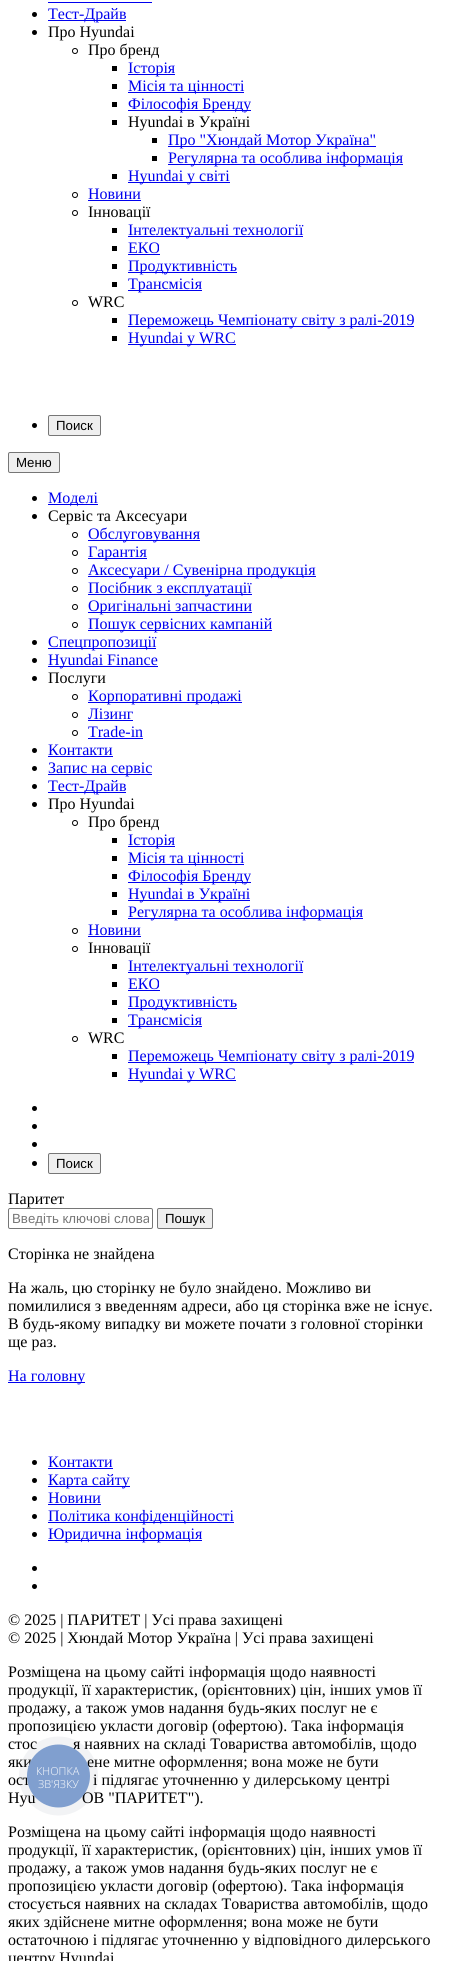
#include <cairo/cairo.h>
#include <math.h>
#include <stddef.h>

typedef struct { double x, y; const char *s; } line_t;
typedef struct { double x, y, w, h; unsigned color; } box_t;
static cairo_t *cr;

static void rgb(unsigned color)
{
	cairo_set_source_rgb(cr, (color >> 16) / 255.0, (color >> 8 & 255) / 255.0, (color & 255) / 255.0);
}

static void rrect(double x, double y, double w, double h, double r)
{
	cairo_new_sub_path(cr);
	cairo_arc(cr, x + w - r, y + h - r, r, 0, M_PI / 2);
	cairo_arc(cr, x + r, y + h - r, r, M_PI / 2, M_PI);
	cairo_arc(cr, x + r, y + r, r, M_PI, 1.5 * M_PI);
	cairo_arc(cr, x + w - r, y + r, r, 1.5 * M_PI, 2 * M_PI);
	cairo_close_path(cr);
}

int main(void) {
	cairo_surface_t *surface = cairo_image_surface_create(CAIRO_FORMAT_RGB24, 451, 1961);
	cr = cairo_create(surface);
	cairo_font_options_t *options = cairo_font_options_create();
	cairo_font_options_set_hint_metrics(options, CAIRO_HINT_METRICS_OFF);
	cairo_font_options_set_hint_style(options, CAIRO_HINT_STYLE_NONE);
	cairo_set_font_options(cr, options);
	cairo_set_miter_limit(cr, 4);
	rgb(0xffffff);
	cairo_paint(cr);
	rgb(0x0000ee);
	cairo_rectangle(cr, 48, 2, 104, 1);
	cairo_fill(cr);
	rgb(0x000000);
	cairo_arc(cr, 34.5, 14.5, 2.5, 0, 2 * M_PI);
	cairo_fill(cr);
	rgb(0x0000ee);
	cairo_rectangle(cr, 48, 20, 78, 1);
	cairo_fill(cr);
	rgb(0x000000);
	cairo_arc(cr, 34.5, 32.5, 2.5, 0, 2 * M_PI);
	cairo_fill(cr);
	cairo_arc(cr, 75, 51, 2.5, 0, 2 * M_PI);
	cairo_set_line_width(cr, 1);
	cairo_stroke(cr);
	{
		static const box_t items[] = {
			{112, 66, 5, 5, 0x000000},
			{128, 74, 47, 1, 0x0000ee},
			{112, 84, 5, 5, 0x000000},
			{128, 92, 116, 1, 0x0000ee},
			{112, 102, 5, 5, 0x000000},
			{128, 110, 123, 1, 0x0000ee},
			{112, 120, 5, 5, 0x000000},
			{152, 138, 5, 5, 0x000000},
			{168, 146, 208, 1, 0x0000ee},
			{152, 156, 5, 5, 0x000000},
			{168, 164, 235, 1, 0x0000ee},
			{112, 174, 5, 5, 0x000000},
			{128, 182, 102, 1, 0x0000ee},
		};
		for (size_t i = 0; i < sizeof items / sizeof *items; i++) {
			rgb(items[i].color);
			cairo_rectangle(cr, items[i].x, items[i].y, items[i].w, items[i].h);
			cairo_fill(cr);
		}
	}
	cairo_arc(cr, 75, 195, 2.5, 0, 2 * M_PI);
	rgb(0x000000);
	cairo_stroke(cr);
	rgb(0x0000ee);
	cairo_rectangle(cr, 88, 200, 53, 1);
	cairo_fill(cr);
	cairo_arc(cr, 75, 213, 2.5, 0, 2 * M_PI);
	rgb(0x000000);
	cairo_stroke(cr);
	{
		static const box_t items[] = {
			{112, 228, 5, 5, 0x000000},
			{128, 236, 175, 1, 0x0000ee},
			{112, 246, 5, 5, 0x000000},
			{128, 254, 32, 1, 0x0000ee},
			{112, 264, 5, 5, 0x000000},
			{128, 272, 109, 1, 0x0000ee},
			{112, 282, 5, 5, 0x000000},
			{128, 290, 74, 1, 0x0000ee},
		};
		for (size_t i = 0; i < sizeof items / sizeof *items; i++) {
			rgb(items[i].color);
			cairo_rectangle(cr, items[i].x, items[i].y, items[i].w, items[i].h);
			cairo_fill(cr);
		}
	}
	cairo_arc(cr, 75, 303, 2.5, 0, 2 * M_PI);
	rgb(0x000000);
	cairo_stroke(cr);
	{
		static const box_t items[] = {
			{112, 318, 5, 5, 0x000000},
			{128, 326, 286, 1, 0x0000ee},
			{112, 336, 5, 5, 0x000000},
			{128, 344, 108, 1, 0x0000ee},
		};
		for (size_t i = 0; i < sizeof items / sizeof *items; i++) {
			rgb(items[i].color);
			cairo_rectangle(cr, items[i].x, items[i].y, items[i].w, items[i].h);
			cairo_fill(cr);
		}
	}
	rgb(0x000000);
	cairo_arc(cr, 34.5, 425.5, 2.5, 0, 2 * M_PI);
	cairo_fill(cr);
	rgb(0xefefef);
	rrect(48.5, 415.5, 52, 20, 1.5);
	cairo_fill_preserve(cr);
	rgb(0x767676);
	cairo_stroke(cr);
	rgb(0xefefef);
	rrect(8.5, 452.5, 51, 20, 1.5);
	cairo_fill_preserve(cr);
	rgb(0x767676);
	cairo_stroke(cr);
	rgb(0x000000);
	cairo_arc(cr, 34.5, 498.5, 2.5, 0, 2 * M_PI);
	cairo_fill(cr);
	rgb(0x0000ee);
	cairo_rectangle(cr, 48, 504, 50, 1);
	cairo_fill(cr);
	rgb(0x000000);
	cairo_arc(cr, 34.5, 516.5, 2.5, 0, 2 * M_PI);
	cairo_fill(cr);
	cairo_arc(cr, 75, 535, 2.5, 0, 2 * M_PI);
	cairo_stroke(cr);
	rgb(0x0000ee);
	cairo_rectangle(cr, 88, 540, 112, 1);
	cairo_fill(cr);
	cairo_arc(cr, 75, 553, 2.5, 0, 2 * M_PI);
	rgb(0x000000);
	cairo_stroke(cr);
	rgb(0x0000ee);
	cairo_rectangle(cr, 88, 558, 59, 1);
	cairo_fill(cr);
	cairo_arc(cr, 75, 571, 2.5, 0, 2 * M_PI);
	rgb(0x000000);
	cairo_stroke(cr);
	rgb(0x0000ee);
	cairo_rectangle(cr, 88, 576, 228, 1);
	cairo_fill(cr);
	cairo_arc(cr, 75, 589, 2.5, 0, 2 * M_PI);
	rgb(0x000000);
	cairo_stroke(cr);
	rgb(0x0000ee);
	cairo_rectangle(cr, 88, 594, 164, 1);
	cairo_fill(cr);
	cairo_arc(cr, 75, 607, 2.5, 0, 2 * M_PI);
	rgb(0x000000);
	cairo_stroke(cr);
	rgb(0x0000ee);
	cairo_rectangle(cr, 88, 612, 164, 1);
	cairo_fill(cr);
	cairo_arc(cr, 75, 625, 2.5, 0, 2 * M_PI);
	rgb(0x000000);
	cairo_stroke(cr);
	rgb(0x0000ee);
	cairo_rectangle(cr, 88, 630, 184, 1);
	cairo_fill(cr);
	rgb(0x000000);
	cairo_arc(cr, 34.5, 642.5, 2.5, 0, 2 * M_PI);
	cairo_fill(cr);
	rgb(0x0000ee);
	cairo_rectangle(cr, 48, 648, 108, 1);
	cairo_fill(cr);
	rgb(0x000000);
	cairo_arc(cr, 34.5, 660.5, 2.5, 0, 2 * M_PI);
	cairo_fill(cr);
	rgb(0x0000ee);
	cairo_rectangle(cr, 48, 666, 110, 1);
	cairo_fill(cr);
	rgb(0x000000);
	cairo_arc(cr, 34.5, 678.5, 2.5, 0, 2 * M_PI);
	cairo_fill(cr);
	cairo_arc(cr, 75, 697, 2.5, 0, 2 * M_PI);
	cairo_stroke(cr);
	rgb(0x0000ee);
	cairo_rectangle(cr, 88, 702, 154, 1);
	cairo_fill(cr);
	cairo_arc(cr, 75, 715, 2.5, 0, 2 * M_PI);
	rgb(0x000000);
	cairo_stroke(cr);
	rgb(0x0000ee);
	cairo_rectangle(cr, 88, 720, 45, 1);
	cairo_fill(cr);
	cairo_arc(cr, 75, 733, 2.5, 0, 2 * M_PI);
	rgb(0x000000);
	cairo_stroke(cr);
	rgb(0x0000ee);
	cairo_rectangle(cr, 88, 738, 55, 1);
	cairo_fill(cr);
	rgb(0x000000);
	cairo_arc(cr, 34.5, 750.5, 2.5, 0, 2 * M_PI);
	cairo_fill(cr);
	rgb(0x0000ee);
	cairo_rectangle(cr, 48, 756, 65, 1);
	cairo_fill(cr);
	rgb(0x000000);
	cairo_arc(cr, 34.5, 768.5, 2.5, 0, 2 * M_PI);
	cairo_fill(cr);
	rgb(0x0000ee);
	cairo_rectangle(cr, 48, 774, 104, 1);
	cairo_fill(cr);
	rgb(0x000000);
	cairo_arc(cr, 34.5, 786.5, 2.5, 0, 2 * M_PI);
	cairo_fill(cr);
	rgb(0x0000ee);
	cairo_rectangle(cr, 48, 792, 78, 1);
	cairo_fill(cr);
	rgb(0x000000);
	cairo_arc(cr, 34.5, 804.5, 2.5, 0, 2 * M_PI);
	cairo_fill(cr);
	cairo_arc(cr, 75, 823, 2.5, 0, 2 * M_PI);
	cairo_stroke(cr);
	{
		static const box_t items[] = {
			{112, 838, 5, 5, 0x000000},
			{128, 846, 47, 1, 0x0000ee},
			{112, 856, 5, 5, 0x000000},
			{128, 864, 116, 1, 0x0000ee},
			{112, 874, 5, 5, 0x000000},
			{128, 882, 123, 1, 0x0000ee},
			{112, 892, 5, 5, 0x000000},
			{128, 900, 122, 1, 0x0000ee},
			{112, 910, 5, 5, 0x000000},
			{128, 918, 235, 1, 0x0000ee},
		};
		for (size_t i = 0; i < sizeof items / sizeof *items; i++) {
			rgb(items[i].color);
			cairo_rectangle(cr, items[i].x, items[i].y, items[i].w, items[i].h);
			cairo_fill(cr);
		}
	}
	cairo_arc(cr, 75, 931, 2.5, 0, 2 * M_PI);
	rgb(0x000000);
	cairo_stroke(cr);
	rgb(0x0000ee);
	cairo_rectangle(cr, 88, 936, 53, 1);
	cairo_fill(cr);
	cairo_arc(cr, 75, 949, 2.5, 0, 2 * M_PI);
	rgb(0x000000);
	cairo_stroke(cr);
	{
		static const box_t items[] = {
			{112, 964, 5, 5, 0x000000},
			{128, 972, 175, 1, 0x0000ee},
			{112, 982, 5, 5, 0x000000},
			{128, 990, 32, 1, 0x0000ee},
			{112, 1000, 5, 5, 0x000000},
			{128, 1008, 109, 1, 0x0000ee},
			{112, 1018, 5, 5, 0x000000},
			{128, 1026, 74, 1, 0x0000ee},
		};
		for (size_t i = 0; i < sizeof items / sizeof *items; i++) {
			rgb(items[i].color);
			cairo_rectangle(cr, items[i].x, items[i].y, items[i].w, items[i].h);
			cairo_fill(cr);
		}
	}
	cairo_arc(cr, 75, 1039, 2.5, 0, 2 * M_PI);
	rgb(0x000000);
	cairo_stroke(cr);
	{
		static const box_t items[] = {
			{112, 1054, 5, 5, 0x000000},
			{128, 1062, 286, 1, 0x0000ee},
			{112, 1072, 5, 5, 0x000000},
			{128, 1080, 108, 1, 0x0000ee},
		};
		for (size_t i = 0; i < sizeof items / sizeof *items; i++) {
			rgb(items[i].color);
			cairo_rectangle(cr, items[i].x, items[i].y, items[i].w, items[i].h);
			cairo_fill(cr);
		}
	}
	rgb(0x000000);
	cairo_arc(cr, 34.5, 1108.5, 2.5, 0, 2 * M_PI);
	cairo_fill(cr);
	cairo_arc(cr, 34.5, 1126.5, 2.5, 0, 2 * M_PI);
	cairo_fill(cr);
	cairo_arc(cr, 34.5, 1144.5, 2.5, 0, 2 * M_PI);
	cairo_fill(cr);
	cairo_arc(cr, 34.5, 1163.5, 2.5, 0, 2 * M_PI);
	cairo_fill(cr);
	rgb(0xefefef);
	rrect(48.5, 1153.5, 52, 20, 1.5);
	cairo_fill_preserve(cr);
	rgb(0x767676);
	cairo_stroke(cr);
	rrect(8.5, 1208.5, 144, 20, 1.5);
	cairo_stroke(cr);
	rgb(0xefefef);
	rrect(157.5, 1208.5, 55, 20, 1.5);
	cairo_fill_preserve(cr);
	rgb(0x767676);
	cairo_stroke(cr);
	rgb(0x0000ee);
	cairo_rectangle(cr, 8, 1382, 77, 1);
	cairo_fill(cr);
	rgb(0x000000);
	cairo_arc(cr, 34.5, 1462.5, 2.5, 0, 2 * M_PI);
	cairo_fill(cr);
	rgb(0x0000ee);
	cairo_rectangle(cr, 48, 1468, 65, 1);
	cairo_fill(cr);
	rgb(0x000000);
	cairo_arc(cr, 34.5, 1480.5, 2.5, 0, 2 * M_PI);
	cairo_fill(cr);
	rgb(0x0000ee);
	cairo_rectangle(cr, 48, 1486, 82, 1);
	cairo_fill(cr);
	rgb(0x000000);
	cairo_arc(cr, 34.5, 1498.5, 2.5, 0, 2 * M_PI);
	cairo_fill(cr);
	rgb(0x0000ee);
	cairo_rectangle(cr, 48, 1504, 53, 1);
	cairo_fill(cr);
	rgb(0x000000);
	cairo_arc(cr, 34.5, 1516.5, 2.5, 0, 2 * M_PI);
	cairo_fill(cr);
	rgb(0x0000ee);
	cairo_rectangle(cr, 48, 1522, 186, 1);
	cairo_fill(cr);
	rgb(0x000000);
	cairo_arc(cr, 34.5, 1534.5, 2.5, 0, 2 * M_PI);
	cairo_fill(cr);
	rgb(0x0000ee);
	cairo_rectangle(cr, 48, 1540, 154, 1);
	cairo_fill(cr);
	rgb(0x000000);
	cairo_arc(cr, 34.5, 1568.5, 2.5, 0, 2 * M_PI);
	cairo_fill(cr);
	cairo_arc(cr, 34.5, 1586.5, 2.5, 0, 2 * M_PI);
	cairo_fill(cr);
	cairo_set_source_rgba(cr, 0.165, 0.251, 0.365, 0.06);
	cairo_arc(cr, 58.5, 1776, 39.5, 0, 2 * M_PI);
	cairo_fill(cr);
	cairo_select_font_face(cr, "Liberation Serif", CAIRO_FONT_SLANT_NORMAL, CAIRO_FONT_WEIGHT_NORMAL);
	cairo_set_font_size(cr, 16);
	rgb(0x0000ee);
	cairo_move_to(cr, 48, 19);
	cairo_show_text(cr, "Тест-Драйв");
	rgb(0x000000);
	cairo_move_to(cr, 48, 37);
	cairo_show_text(cr, "Про Hyundai");
	cairo_move_to(cr, 88, 55);
	cairo_show_text(cr, "Про бренд");
	rgb(0x0000ee);
	{
		static const line_t items[] = {
			{128, 73, "Історія"},
			{128, 91, "Місія та цінності"},
			{128, 109, "Філософія Бренду"},
		};
		for (size_t i = 0; i < sizeof items / sizeof *items; i++) {
			cairo_move_to(cr, items[i].x, items[i].y);
			cairo_show_text(cr, items[i].s);
		}
	}
	rgb(0x000000);
	cairo_move_to(cr, 128, 127);
	cairo_show_text(cr, "Hyundai в Україні");
	rgb(0x0000ee);
	{
		static const line_t items[] = {
			{168, 145, "Про \"Хюндай Мотор Україна\""},
			{168, 163, "Регулярна та особлива інформація"},
			{128, 181, "Hyundai у світі"},
			{88, 199, "Новини"},
		};
		for (size_t i = 0; i < sizeof items / sizeof *items; i++) {
			cairo_move_to(cr, items[i].x, items[i].y);
			cairo_show_text(cr, items[i].s);
		}
	}
	rgb(0x000000);
	cairo_move_to(cr, 88, 217);
	cairo_show_text(cr, "Інновації");
	rgb(0x0000ee);
	{
		static const line_t items[] = {
			{128, 235, "Інтелектуальні технології"},
			{128, 253, "ЕКО"},
			{128, 271, "Продуктивність"},
			{128, 289, "Трансмісія"},
		};
		for (size_t i = 0; i < sizeof items / sizeof *items; i++) {
			cairo_move_to(cr, items[i].x, items[i].y);
			cairo_show_text(cr, items[i].s);
		}
	}
	rgb(0x000000);
	cairo_move_to(cr, 88, 307);
	cairo_show_text(cr, "WRC");
	rgb(0x0000ee);
	cairo_move_to(cr, 128, 325);
	cairo_show_text(cr, "Переможець Чемпіонату світу з ралі-2019");
	cairo_move_to(cr, 128, 343);
	cairo_show_text(cr, "Hyundai у WRC");
	cairo_select_font_face(cr, "Liberation Sans", CAIRO_FONT_SLANT_NORMAL, CAIRO_FONT_WEIGHT_NORMAL);
	cairo_set_font_size(cr, 13.25);
	rgb(0x000000);
	cairo_move_to(cr, 56, 430);
	cairo_show_text(cr, "Поиск");
	cairo_move_to(cr, 16, 467);
	cairo_show_text(cr, "Меню");
	cairo_select_font_face(cr, "Liberation Serif", CAIRO_FONT_SLANT_NORMAL, CAIRO_FONT_WEIGHT_NORMAL);
	cairo_set_font_size(cr, 16);
	rgb(0x0000ee);
	cairo_move_to(cr, 48, 503);
	cairo_show_text(cr, "Моделі");
	rgb(0x000000);
	cairo_move_to(cr, 48, 521);
	cairo_show_text(cr, "Сервіс та Аксесуари");
	rgb(0x0000ee);
	{
		static const line_t items[] = {
			{88, 539, "Обслуговування"},
			{88, 557, "Гарантія"},
			{88, 575, "Аксесуари / Сувенірна продукція"},
			{88, 593, "Посібник з експлуатації"},
			{88, 611, "Оригінальні запчастини"},
			{88, 629, "Пошук сервісних кампаній"},
			{48, 647, "Спецпропозиції"},
			{48, 665, "Hyundai Finance"},
		};
		for (size_t i = 0; i < sizeof items / sizeof *items; i++) {
			cairo_move_to(cr, items[i].x, items[i].y);
			cairo_show_text(cr, items[i].s);
		}
	}
	rgb(0x000000);
	cairo_move_to(cr, 48, 683);
	cairo_show_text(cr, "Послуги");
	rgb(0x0000ee);
	{
		static const line_t items[] = {
			{88, 701, "Корпоративні продажі"},
			{88, 719, "Лізинг"},
			{88, 737, "Trade-in"},
			{48, 755, "Контакти"},
			{48, 773, "Запис на сервіс"},
			{48, 791, "Тест-Драйв"},
		};
		for (size_t i = 0; i < sizeof items / sizeof *items; i++) {
			cairo_move_to(cr, items[i].x, items[i].y);
			cairo_show_text(cr, items[i].s);
		}
	}
	rgb(0x000000);
	cairo_move_to(cr, 48, 809);
	cairo_show_text(cr, "Про Hyundai");
	cairo_move_to(cr, 88, 827);
	cairo_show_text(cr, "Про бренд");
	rgb(0x0000ee);
	{
		static const line_t items[] = {
			{128, 845, "Історія"},
			{128, 863, "Місія та цінності"},
			{128, 881, "Філософія Бренду"},
			{128, 899, "Hyundai в Україні"},
			{128, 917, "Регулярна та особлива інформація"},
			{88, 935, "Новини"},
		};
		for (size_t i = 0; i < sizeof items / sizeof *items; i++) {
			cairo_move_to(cr, items[i].x, items[i].y);
			cairo_show_text(cr, items[i].s);
		}
	}
	rgb(0x000000);
	cairo_move_to(cr, 88, 953);
	cairo_show_text(cr, "Інновації");
	rgb(0x0000ee);
	{
		static const line_t items[] = {
			{128, 971, "Інтелектуальні технології"},
			{128, 989, "ЕКО"},
			{128, 1007, "Продуктивність"},
			{128, 1025, "Трансмісія"},
		};
		for (size_t i = 0; i < sizeof items / sizeof *items; i++) {
			cairo_move_to(cr, items[i].x, items[i].y);
			cairo_show_text(cr, items[i].s);
		}
	}
	rgb(0x000000);
	cairo_move_to(cr, 88, 1043);
	cairo_show_text(cr, "WRC");
	rgb(0x0000ee);
	cairo_move_to(cr, 128, 1061);
	cairo_show_text(cr, "Переможець Чемпіонату світу з ралі-2019");
	cairo_move_to(cr, 128, 1079);
	cairo_show_text(cr, "Hyundai у WRC");
	cairo_select_font_face(cr, "Liberation Sans", CAIRO_FONT_SLANT_NORMAL, CAIRO_FONT_WEIGHT_NORMAL);
	cairo_set_font_size(cr, 13.25);
	rgb(0x000000);
	cairo_move_to(cr, 56, 1168);
	cairo_show_text(cr, "Поиск");
	cairo_select_font_face(cr, "Liberation Serif", CAIRO_FONT_SLANT_NORMAL, CAIRO_FONT_WEIGHT_NORMAL);
	cairo_set_font_size(cr, 16);
	cairo_move_to(cr, 8, 1204);
	cairo_show_text(cr, "Паритет");
	cairo_save(cr);
	cairo_rectangle(cr, 12, 1211, 137, 15);
	cairo_clip(cr);
	cairo_select_font_face(cr, "Liberation Sans", CAIRO_FONT_SLANT_NORMAL, CAIRO_FONT_WEIGHT_NORMAL);
	cairo_set_font_size(cr, 13.25);
	rgb(0x757575);
	cairo_move_to(cr, 12, 1223);
	cairo_show_text(cr, "Введіть ключові слова");
	cairo_restore(cr);
	cairo_select_font_face(cr, "Liberation Sans", CAIRO_FONT_SLANT_NORMAL, CAIRO_FONT_WEIGHT_NORMAL);
	cairo_set_font_size(cr, 13.25);
	cairo_move_to(cr, 165, 1223);
	cairo_show_text(cr, "Пошук");
	cairo_select_font_face(cr, "Liberation Serif", CAIRO_FONT_SLANT_NORMAL, CAIRO_FONT_WEIGHT_NORMAL);
	cairo_set_font_size(cr, 16);
	{
		static const line_t items[] = {
			{8, 1259, "Сторінка не знайдена"},
			{8, 1293, "На жаль, цю сторінку не було знайдено. Можливо ви"},
			{8, 1311, "помилилися з введенням адреси, або ця сторінка вже не існує."},
			{8, 1329, "В будь-якому випадку ви можете почати з головної сторінки"},
			{8, 1347, "ще раз."},
		};
		for (size_t i = 0; i < sizeof items / sizeof *items; i++) {
			cairo_move_to(cr, items[i].x, items[i].y);
			cairo_show_text(cr, items[i].s);
		}
	}
	rgb(0x0000ee);
	{
		static const line_t items[] = {
			{8, 1381, "На головну"},
			{48, 1467, "Контакти"},
			{48, 1485, "Карта сайту"},
			{48, 1503, "Новини"},
			{48, 1521, "Політика конфіденційності"},
			{48, 1539, "Юридична інформація"},
		};
		for (size_t i = 0; i < sizeof items / sizeof *items; i++) {
			cairo_move_to(cr, items[i].x, items[i].y);
			cairo_show_text(cr, items[i].s);
		}
	}
	rgb(0x000000);
	{
		static const line_t items[] = {
			{8, 1625, "© 2025 | ПАРИТЕТ | Усі права захищені"},
			{8, 1643, "© 2025 | Хюндай Мотор Україна | Усі права захищені"},
			{8, 1677, "Розміщена на цьому сайті інформація щодо наявності"},
			{8, 1695, "продукції, її характеристик, (орієнтовних) цін, інших умов її"},
			{8, 1713, "продажу, а також умов надання будь-яких послуг не є"},
			{8, 1731, "пропозицією укласти договір (офертою). Така інформація"},
			{8, 1749, "стос"},
			{73, 1749, "я наявних на складі Товариства автомобілів, щодо"},
			{8, 1767, "яки"},
			{87, 1767, "ене митне оформлення; вона може не бути"},
			{8, 1785, "ост"},
			{93, 1785, "і підлягає уточненню у дилерському центрі"},
			{8, 1803, "Hyu"},
			{82, 1803, "ОВ \"ПАРИТЕТ\")."},
			{8, 1837, "Розміщена на цьому сайті інформація щодо наявності"},
			{8, 1855, "продукції, її характеристик, (орієнтовних) цін, інших умов її"},
			{8, 1873, "продажу, а також умов надання будь-яких послуг не є"},
			{8, 1891, "пропозицією укласти договір (офертою). Така інформація"},
			{8, 1909, "стосується наявних на складах Товариства автомобілів, щодо"},
			{8, 1927, "яких здійснене митне оформлення; вона може не бути"},
			{8, 1945, "остаточною і підлягає уточненню у відповідного дилерського"},
			{8, 1963, "центру Hyundai"},
		};
		for (size_t i = 0; i < sizeof items / sizeof *items; i++) {
			cairo_move_to(cr, items[i].x, items[i].y);
			cairo_show_text(cr, items[i].s);
		}
	}
	rgb(0x809fcf);
	cairo_new_path(cr);
	cairo_arc(cr, 58.5, 1776, 31.5, 0, 2 * M_PI);
	cairo_fill(cr);
	cairo_select_font_face(cr, "Open Sans Light", CAIRO_FONT_SLANT_NORMAL, CAIRO_FONT_WEIGHT_NORMAL);
	cairo_set_font_size(cr, 11);
	rgb(0xffffff);
	cairo_move_to(cr, 36, 1775);
	cairo_show_text(cr, "КНОПКА");
	cairo_move_to(cr, 38, 1788);
	cairo_show_text(cr, "ЗВ'ЯЗКУ");
	cairo_surface_write_to_png(surface, "page.png");
	cairo_font_options_destroy(options);
	cairo_destroy(cr);
	cairo_surface_destroy(surface);
	return 0;
}
